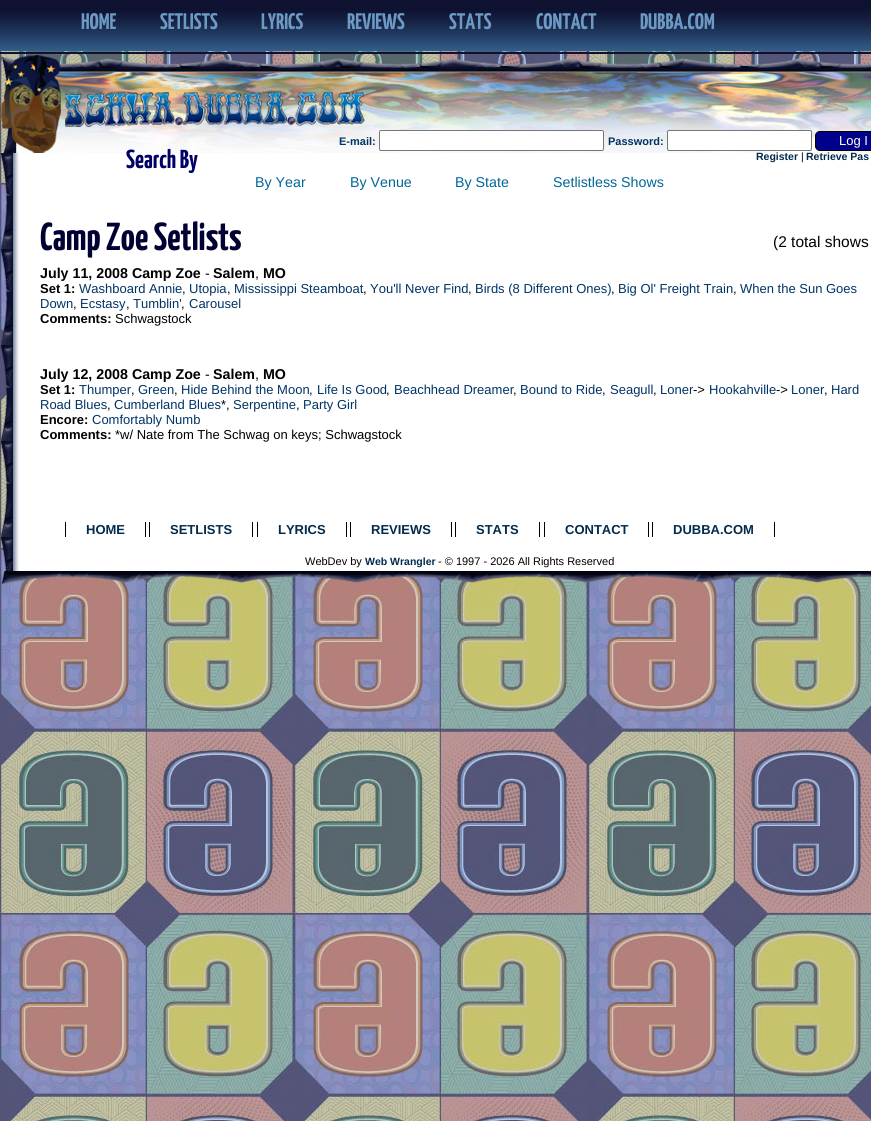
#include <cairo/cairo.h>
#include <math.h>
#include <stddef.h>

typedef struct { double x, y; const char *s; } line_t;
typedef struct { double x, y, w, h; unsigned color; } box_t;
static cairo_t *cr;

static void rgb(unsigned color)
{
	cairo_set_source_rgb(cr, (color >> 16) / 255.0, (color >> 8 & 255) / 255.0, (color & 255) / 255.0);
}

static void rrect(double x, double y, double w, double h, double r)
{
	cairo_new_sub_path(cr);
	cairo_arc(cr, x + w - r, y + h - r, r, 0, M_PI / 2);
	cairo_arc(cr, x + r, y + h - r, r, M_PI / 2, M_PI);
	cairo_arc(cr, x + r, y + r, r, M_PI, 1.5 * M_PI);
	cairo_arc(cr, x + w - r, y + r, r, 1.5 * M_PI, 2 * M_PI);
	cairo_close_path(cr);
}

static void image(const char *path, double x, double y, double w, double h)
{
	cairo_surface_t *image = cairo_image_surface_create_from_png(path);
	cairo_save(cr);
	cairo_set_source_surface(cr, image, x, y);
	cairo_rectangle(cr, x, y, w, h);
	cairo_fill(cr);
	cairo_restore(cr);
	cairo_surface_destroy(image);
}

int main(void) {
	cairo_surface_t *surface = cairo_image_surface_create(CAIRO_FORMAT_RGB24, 871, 1121);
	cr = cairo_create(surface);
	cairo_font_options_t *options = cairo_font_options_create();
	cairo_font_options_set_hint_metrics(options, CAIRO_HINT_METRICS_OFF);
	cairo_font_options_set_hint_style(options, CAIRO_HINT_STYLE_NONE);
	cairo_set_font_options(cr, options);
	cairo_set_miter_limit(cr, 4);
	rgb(0xffffff);
	cairo_paint(cr);
	image("img/1.png", 0, 51, 871, 1070);
	image("img/2.png", 0, 0, 871, 54);
	image("img/3.png", 1, 55, 870, 98);
	rgb(0xffffff);
	rrect(379.5, 130.5, 224, 20, 1.5);
	cairo_fill_preserve(cr);
	rgb(0x767676);
	cairo_set_line_width(cr, 1);
	cairo_stroke(cr);
	rgb(0xffffff);
	rrect(667.5, 130.5, 144, 20, 1.5);
	cairo_fill_preserve(cr);
	rgb(0x767676);
	cairo_stroke(cr);
	rgb(0x00008b);
	rrect(815.5, 131.5, 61, 19, 4.5);
	cairo_fill_preserve(cr);
	rgb(0x000000);
	cairo_stroke(cr);
	image("img/4.png", 0, 153, 871, 418);
	{
		static const box_t items[] = {
			{145, 522, 1, 15, 0x000000},
			{65, 522, 1, 15, 0x000000},
			{252, 522, 1, 15, 0x000000},
			{149, 522, 1, 15, 0x000000},
			{346, 522, 1, 15, 0x000000},
			{257, 522, 1, 15, 0x000000},
			{451, 522, 1, 15, 0x000000},
			{350, 522, 1, 15, 0x000000},
			{539, 522, 1, 15, 0x000000},
			{455, 522, 1, 15, 0x000000},
			{648, 522, 1, 15, 0x000000},
			{544, 522, 1, 15, 0x000000},
			{774, 522, 1, 15, 0x000000},
			{652, 522, 1, 15, 0x000000},
		};
		for (size_t i = 0; i < sizeof items / sizeof *items; i++) {
			rgb(items[i].color);
			cairo_rectangle(cr, items[i].x, items[i].y, items[i].w, items[i].h);
			cairo_fill(cr);
		}
	}
	image("img/5.png", 0, 571, 871, 14);
	cairo_select_font_face(cr, "Yanone Kaffeesatz", CAIRO_FONT_SLANT_NORMAL, CAIRO_FONT_WEIGHT_BOLD);
	cairo_set_font_size(cr, 22.5);
	rgb(0x6d9ac5);
	{
		static const line_t items[] = {
			{81, 29, "HOME"},
			{160, 29, "SETLISTS"},
			{261, 29, "LYRICS"},
			{347, 29, "REVIEWS"},
			{449, 29, "STATS"},
			{536, 29, "CONTACT"},
			{640, 29, "DUBBA.COM"},
		};
		for (size_t i = 0; i < sizeof items / sizeof *items; i++) {
			cairo_move_to(cr, items[i].x, items[i].y);
			cairo_show_text(cr, items[i].s);
		}
	}
	cairo_select_font_face(cr, "Liberation Sans", CAIRO_FONT_SLANT_NORMAL, CAIRO_FONT_WEIGHT_BOLD);
	cairo_set_font_size(cr, 11);
	rgb(0x003366);
	cairo_move_to(cr, 339, 145);
	cairo_show_text(cr, "E-mail:");
	cairo_move_to(cr, 608, 145);
	cairo_show_text(cr, "Password:");
	cairo_select_font_face(cr, "Liberation Sans", CAIRO_FONT_SLANT_NORMAL, CAIRO_FONT_WEIGHT_NORMAL);
	cairo_set_font_size(cr, 13);
	rgb(0xffffff);
	cairo_move_to(cr, 839, 145);
	cairo_show_text(cr, "Log I");
	cairo_select_font_face(cr, "Liberation Sans", CAIRO_FONT_SLANT_NORMAL, CAIRO_FONT_WEIGHT_BOLD);
	cairo_set_font_size(cr, 10.5);
	rgb(0x022b4e);
	cairo_move_to(cr, 756, 160);
	cairo_show_text(cr, "Register");
	cairo_select_font_face(cr, "Liberation Sans", CAIRO_FONT_SLANT_NORMAL, CAIRO_FONT_WEIGHT_NORMAL);
	rgb(0x000000);
	cairo_move_to(cr, 801, 160);
	cairo_show_text(cr, "|");
	cairo_select_font_face(cr, "Liberation Sans", CAIRO_FONT_SLANT_NORMAL, CAIRO_FONT_WEIGHT_BOLD);
	rgb(0x022b4e);
	cairo_move_to(cr, 806, 160);
	cairo_show_text(cr, "Retrieve Pas");
	cairo_select_font_face(cr, "Yanone Kaffeesatz", CAIRO_FONT_SLANT_NORMAL, CAIRO_FONT_WEIGHT_BOLD);
	cairo_set_font_size(cr, 26);
	rgb(0x000066);
	cairo_move_to(cr, 126, 168);
	cairo_show_text(cr, "Search By");
	cairo_select_font_face(cr, "Liberation Sans", CAIRO_FONT_SLANT_NORMAL, CAIRO_FONT_WEIGHT_NORMAL);
	cairo_set_font_size(cr, 14.25);
	rgb(0x006699);
	{
		static const line_t items[] = {
			{255, 187, "By Year"},
			{350, 187, "By Venue"},
			{455, 187, "By State"},
			{553, 187, "Setlistless Shows"},
		};
		for (size_t i = 0; i < sizeof items / sizeof *items; i++) {
			cairo_move_to(cr, items[i].x, items[i].y);
			cairo_show_text(cr, items[i].s);
		}
	}
	cairo_select_font_face(cr, "Yanone Kaffeesatz", CAIRO_FONT_SLANT_NORMAL, CAIRO_FONT_WEIGHT_BOLD);
	cairo_set_font_size(cr, 39);
	rgb(0x000033);
	cairo_move_to(cr, 40, 250);
	cairo_show_text(cr, "Camp Zoe Setlists");
	cairo_select_font_face(cr, "Liberation Sans", CAIRO_FONT_SLANT_NORMAL, CAIRO_FONT_WEIGHT_NORMAL);
	cairo_set_font_size(cr, 15.5);
	rgb(0x000000);
	cairo_move_to(cr, 773, 247);
	cairo_show_text(cr, "(2 total shows");
	cairo_select_font_face(cr, "Liberation Sans", CAIRO_FONT_SLANT_NORMAL, CAIRO_FONT_WEIGHT_BOLD);
	cairo_set_font_size(cr, 14.25);
	cairo_move_to(cr, 40, 278);
	cairo_show_text(cr, "July 11, 2008 Camp Zoe");
	cairo_select_font_face(cr, "Liberation Sans", CAIRO_FONT_SLANT_NORMAL, CAIRO_FONT_WEIGHT_NORMAL);
	cairo_move_to(cr, 205, 278);
	cairo_show_text(cr, "-");
	cairo_select_font_face(cr, "Liberation Sans", CAIRO_FONT_SLANT_NORMAL, CAIRO_FONT_WEIGHT_BOLD);
	cairo_move_to(cr, 213, 278);
	cairo_show_text(cr, "Salem");
	cairo_move_to(cr, 263, 278);
	cairo_show_text(cr, "MO");
	cairo_select_font_face(cr, "Liberation Sans", CAIRO_FONT_SLANT_NORMAL, CAIRO_FONT_WEIGHT_NORMAL);
	cairo_move_to(cr, 255, 278);
	cairo_show_text(cr, ",");
	cairo_select_font_face(cr, "Liberation Sans", CAIRO_FONT_SLANT_NORMAL, CAIRO_FONT_WEIGHT_BOLD);
	cairo_set_font_size(cr, 13);
	cairo_move_to(cr, 40, 293);
	cairo_show_text(cr, "Set 1:");
	cairo_select_font_face(cr, "Liberation Sans", CAIRO_FONT_SLANT_NORMAL, CAIRO_FONT_WEIGHT_NORMAL);
	rgb(0x003366);
	cairo_move_to(cr, 79, 293);
	cairo_show_text(cr, "Washboard Annie");
	rgb(0x000000);
	cairo_move_to(cr, 182, 293);
	cairo_show_text(cr, ",");
	rgb(0x003366);
	cairo_move_to(cr, 189, 293);
	cairo_show_text(cr, "Utopia");
	rgb(0x000000);
	cairo_move_to(cr, 227, 293);
	cairo_show_text(cr, ",");
	rgb(0x003366);
	cairo_move_to(cr, 234, 293);
	cairo_show_text(cr, "Mississippi Steamboat");
	rgb(0x000000);
	cairo_move_to(cr, 363, 293);
	cairo_show_text(cr, ",");
	rgb(0x003366);
	cairo_move_to(cr, 370, 293);
	cairo_show_text(cr, "You'll Never Find");
	rgb(0x000000);
	cairo_move_to(cr, 468, 293);
	cairo_show_text(cr, ",");
	rgb(0x003366);
	cairo_move_to(cr, 475, 293);
	cairo_show_text(cr, "Birds (8 Different Ones)");
	rgb(0x000000);
	cairo_move_to(cr, 611, 293);
	cairo_show_text(cr, ",");
	rgb(0x003366);
	cairo_move_to(cr, 618, 293);
	cairo_show_text(cr, "Big Ol' Freight Train");
	rgb(0x000000);
	cairo_move_to(cr, 733, 293);
	cairo_show_text(cr, ",");
	rgb(0x003366);
	cairo_move_to(cr, 740, 293);
	cairo_show_text(cr, "When the Sun Goes");
	cairo_move_to(cr, 40, 308);
	cairo_show_text(cr, "Down");
	rgb(0x000000);
	cairo_move_to(cr, 73, 308);
	cairo_show_text(cr, ",");
	rgb(0x003366);
	cairo_move_to(cr, 80, 308);
	cairo_show_text(cr, "Ecstasy");
	rgb(0x000000);
	cairo_move_to(cr, 126, 308);
	cairo_show_text(cr, ",");
	rgb(0x003366);
	cairo_move_to(cr, 133, 308);
	cairo_show_text(cr, "Tumblin'");
	rgb(0x000000);
	cairo_move_to(cr, 181, 308);
	cairo_show_text(cr, ",");
	rgb(0x003366);
	cairo_move_to(cr, 189, 308);
	cairo_show_text(cr, "Carousel");
	cairo_select_font_face(cr, "Liberation Sans", CAIRO_FONT_SLANT_NORMAL, CAIRO_FONT_WEIGHT_BOLD);
	rgb(0x000000);
	cairo_move_to(cr, 40, 323);
	cairo_show_text(cr, "Comments:");
	cairo_select_font_face(cr, "Liberation Sans", CAIRO_FONT_SLANT_NORMAL, CAIRO_FONT_WEIGHT_NORMAL);
	cairo_move_to(cr, 115, 323);
	cairo_show_text(cr, "Schwagstock");
	cairo_select_font_face(cr, "Liberation Sans", CAIRO_FONT_SLANT_NORMAL, CAIRO_FONT_WEIGHT_BOLD);
	cairo_set_font_size(cr, 14.25);
	cairo_move_to(cr, 40, 379);
	cairo_show_text(cr, "July 12, 2008 Camp Zoe");
	cairo_select_font_face(cr, "Liberation Sans", CAIRO_FONT_SLANT_NORMAL, CAIRO_FONT_WEIGHT_NORMAL);
	cairo_move_to(cr, 205, 379);
	cairo_show_text(cr, "-");
	cairo_select_font_face(cr, "Liberation Sans", CAIRO_FONT_SLANT_NORMAL, CAIRO_FONT_WEIGHT_BOLD);
	cairo_move_to(cr, 213, 379);
	cairo_show_text(cr, "Salem");
	cairo_move_to(cr, 263, 379);
	cairo_show_text(cr, "MO");
	cairo_select_font_face(cr, "Liberation Sans", CAIRO_FONT_SLANT_NORMAL, CAIRO_FONT_WEIGHT_NORMAL);
	cairo_move_to(cr, 255, 379);
	cairo_show_text(cr, ",");
	cairo_select_font_face(cr, "Liberation Sans", CAIRO_FONT_SLANT_NORMAL, CAIRO_FONT_WEIGHT_BOLD);
	cairo_set_font_size(cr, 13);
	cairo_move_to(cr, 40, 394);
	cairo_show_text(cr, "Set 1:");
	cairo_select_font_face(cr, "Liberation Sans", CAIRO_FONT_SLANT_NORMAL, CAIRO_FONT_WEIGHT_NORMAL);
	rgb(0x003366);
	{
		static const line_t items[] = {
			{79, 394, "Thumper"},
			{138, 394, "Green"},
			{181, 394, "Hide Behind the Moon"},
			{317, 394, "Life Is Good"},
			{394, 394, "Beachhead Dreamer"},
			{520, 394, "Bound to Ride"},
			{610, 394, "Seagull"},
			{660, 394, "Loner"},
		};
		for (size_t i = 0; i < sizeof items / sizeof *items; i++) {
			cairo_move_to(cr, items[i].x, items[i].y);
			cairo_show_text(cr, items[i].s);
		}
	}
	rgb(0x000000);
	cairo_move_to(cr, 693, 394);
	cairo_show_text(cr, "->");
	rgb(0x003366);
	cairo_move_to(cr, 709, 394);
	cairo_show_text(cr, "Hookahville");
	rgb(0x000000);
	cairo_move_to(cr, 776, 394);
	cairo_show_text(cr, "->");
	rgb(0x003366);
	cairo_move_to(cr, 791, 394);
	cairo_show_text(cr, "Loner");
	cairo_move_to(cr, 831, 394);
	cairo_show_text(cr, "Hard");
	rgb(0x000000);
	{
		static const line_t items[] = {
			{131, 394, ","},
			{174, 394, ","},
			{309, 394, ","},
			{386, 394, ","},
			{513, 394, ","},
			{602, 394, ","},
			{653, 394, ","},
			{824, 394, ","},
		};
		for (size_t i = 0; i < sizeof items / sizeof *items; i++) {
			cairo_move_to(cr, items[i].x, items[i].y);
			cairo_show_text(cr, items[i].s);
		}
	}
	rgb(0x003366);
	cairo_move_to(cr, 40, 409);
	cairo_show_text(cr, "Road Blues");
	rgb(0x000000);
	cairo_move_to(cr, 107, 409);
	cairo_show_text(cr, ",");
	rgb(0x003366);
	cairo_move_to(cr, 114, 409);
	cairo_show_text(cr, "Cumberland Blues");
	rgb(0x000000);
	cairo_move_to(cr, 221, 409);
	cairo_show_text(cr, "*,");
	rgb(0x003366);
	cairo_move_to(cr, 233, 409);
	cairo_show_text(cr, "Serpentine");
	rgb(0x000000);
	cairo_move_to(cr, 296, 409);
	cairo_show_text(cr, ",");
	rgb(0x003366);
	cairo_move_to(cr, 303, 409);
	cairo_show_text(cr, "Party Girl");
	cairo_select_font_face(cr, "Liberation Sans", CAIRO_FONT_SLANT_NORMAL, CAIRO_FONT_WEIGHT_BOLD);
	rgb(0x000000);
	cairo_move_to(cr, 40, 424);
	cairo_show_text(cr, "Encore:");
	cairo_select_font_face(cr, "Liberation Sans", CAIRO_FONT_SLANT_NORMAL, CAIRO_FONT_WEIGHT_NORMAL);
	rgb(0x003366);
	cairo_move_to(cr, 92, 424);
	cairo_show_text(cr, "Comfortably Numb");
	cairo_select_font_face(cr, "Liberation Sans", CAIRO_FONT_SLANT_NORMAL, CAIRO_FONT_WEIGHT_BOLD);
	rgb(0x000000);
	cairo_move_to(cr, 40, 439);
	cairo_show_text(cr, "Comments:");
	cairo_select_font_face(cr, "Liberation Sans", CAIRO_FONT_SLANT_NORMAL, CAIRO_FONT_WEIGHT_NORMAL);
	cairo_move_to(cr, 115, 439);
	cairo_show_text(cr, "*w/ Nate from The Schwag on keys; Schwagstock");
	cairo_select_font_face(cr, "Liberation Sans", CAIRO_FONT_SLANT_NORMAL, CAIRO_FONT_WEIGHT_BOLD);
	rgb(0x022b4e);
	{
		static const line_t items[] = {
			{86, 534, "HOME"},
			{170, 534, "SETLISTS"},
			{278, 534, "LYRICS"},
			{371, 534, "REVIEWS"},
			{476, 534, "STATS"},
			{565, 534, "CONTACT"},
			{673, 534, "DUBBA.COM"},
		};
		for (size_t i = 0; i < sizeof items / sizeof *items; i++) {
			cairo_move_to(cr, items[i].x, items[i].y);
			cairo_show_text(cr, items[i].s);
		}
	}
	cairo_select_font_face(cr, "Liberation Sans", CAIRO_FONT_SLANT_NORMAL, CAIRO_FONT_WEIGHT_NORMAL);
	cairo_set_font_size(cr, 11);
	rgb(0x000000);
	cairo_move_to(cr, 305, 565);
	cairo_show_text(cr, "WebDev by");
	cairo_select_font_face(cr, "Liberation Sans", CAIRO_FONT_SLANT_NORMAL, CAIRO_FONT_WEIGHT_BOLD);
	cairo_set_font_size(cr, 10.5);
	rgb(0x022b4e);
	cairo_move_to(cr, 365, 565);
	cairo_show_text(cr, "Web Wrangler");
	cairo_select_font_face(cr, "Liberation Sans", CAIRO_FONT_SLANT_NORMAL, CAIRO_FONT_WEIGHT_NORMAL);
	cairo_set_font_size(cr, 11);
	rgb(0x000000);
	cairo_move_to(cr, 438, 565);
	cairo_show_text(cr, "- © 1997 - 2026 All Rights Reserved");
	cairo_surface_write_to_png(surface, "page.png");
	cairo_font_options_destroy(options);
	cairo_destroy(cr);
	cairo_surface_destroy(surface);
	return 0;
}
